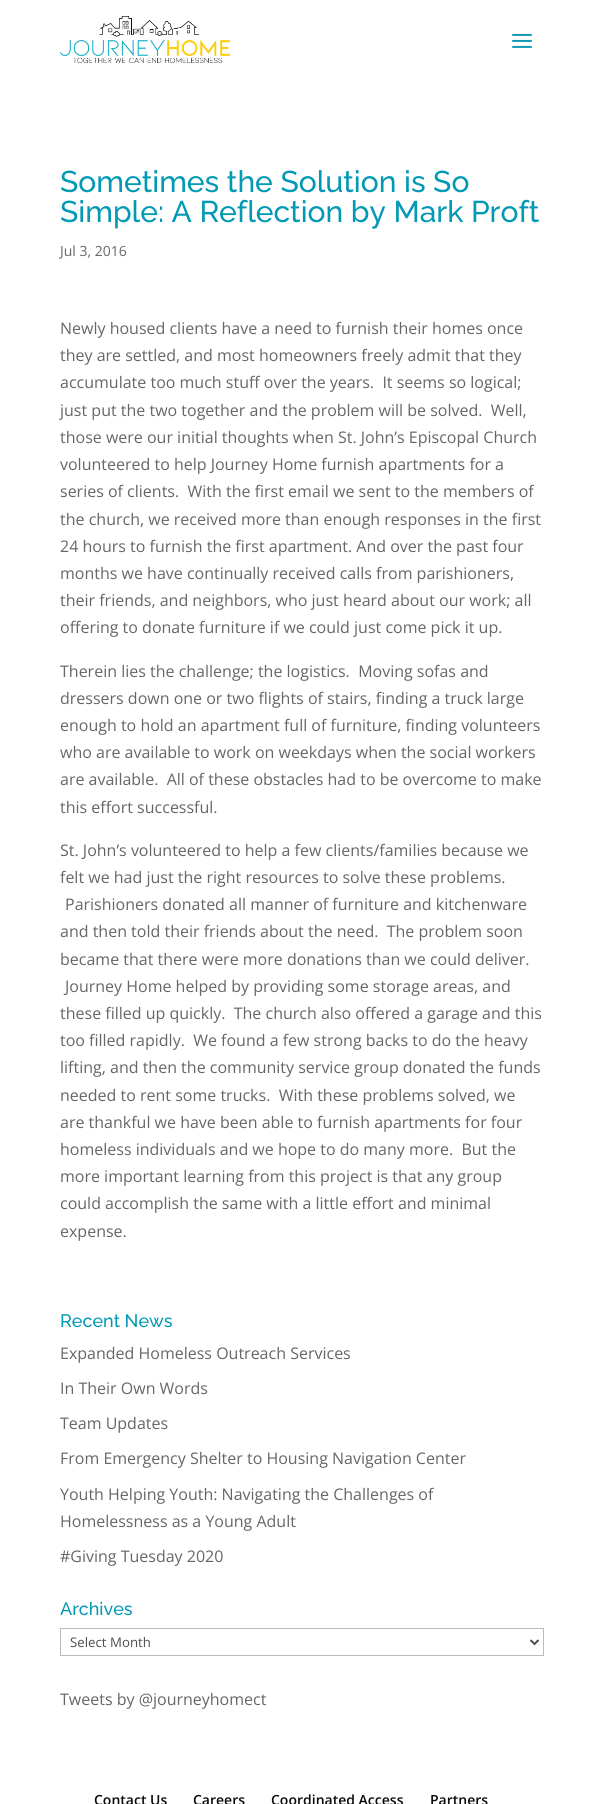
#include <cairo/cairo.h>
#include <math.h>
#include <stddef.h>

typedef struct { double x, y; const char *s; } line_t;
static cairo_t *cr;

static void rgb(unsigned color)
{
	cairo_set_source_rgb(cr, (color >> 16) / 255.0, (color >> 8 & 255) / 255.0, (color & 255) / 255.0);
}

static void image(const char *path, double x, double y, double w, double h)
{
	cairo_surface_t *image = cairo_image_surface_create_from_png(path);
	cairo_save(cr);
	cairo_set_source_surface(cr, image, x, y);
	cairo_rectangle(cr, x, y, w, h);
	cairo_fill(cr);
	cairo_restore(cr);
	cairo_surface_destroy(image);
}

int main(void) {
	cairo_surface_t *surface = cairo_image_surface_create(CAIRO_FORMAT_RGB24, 604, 1804);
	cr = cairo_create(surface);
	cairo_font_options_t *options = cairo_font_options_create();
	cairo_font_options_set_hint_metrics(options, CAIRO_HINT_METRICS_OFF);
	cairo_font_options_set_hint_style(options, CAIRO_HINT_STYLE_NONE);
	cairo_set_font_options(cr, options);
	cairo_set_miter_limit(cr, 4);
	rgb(0xffffff);
	cairo_paint(cr);
	image("img/1.png", 60, 16, 170, 47);
	image("img/2.png", 512, 33, 20, 15);
	cairo_rectangle(cr, 60.5, 1628.5, 483, 27);
	rgb(0xbbbbbb);
	cairo_set_line_width(cr, 1);
	cairo_stroke(cr);
	cairo_new_path(cr);
	cairo_move_to(cr, 530.5, 1640);
	cairo_line_to(cr, 534.5, 1644);
	cairo_line_to(cr, 538.5, 1640);
	rgb(0x4e4e4e);
	cairo_set_line_width(cr, 2);
	cairo_stroke(cr);
	cairo_select_font_face(cr, "Raleway Thin", CAIRO_FONT_SLANT_NORMAL, CAIRO_FONT_WEIGHT_NORMAL);
	cairo_set_font_size(cr, 30);
	rgb(0x0199b4);
	cairo_move_to(cr, 60, 192);
	cairo_show_text(cr, "Sometimes the Solution is So");
	cairo_move_to(cr, 60, 222);
	cairo_show_text(cr, "Simple: A Reflection by Mark Proft");
	cairo_select_font_face(cr, "Open Sans", CAIRO_FONT_SLANT_NORMAL, CAIRO_FONT_WEIGHT_NORMAL);
	cairo_set_font_size(cr, 14);
	rgb(0x666666);
	cairo_move_to(cr, 60, 256);
	cairo_show_text(cr, "Jul 3, 2016");
	cairo_set_font_size(cr, 16);
	{
		static const line_t items[] = {
			{60, 334, "Newly housed clients have a need to furnish their homes once"},
			{60, 361, "they are settled, and most homeowners freely admit that they"},
			{60, 388, "accumulate too much stuff over the years.  It seems so logical;"},
			{60, 416, "just put the two together and the problem will be solved.  Well,"},
			{60, 443, "those were our initial thoughts when St. John’s Episcopal Church"},
			{60, 470, "volunteered to help Journey Home furnish apartments for a"},
			{60, 497, "series of clients.  With the first email we sent to the members of"},
			{60, 525, "the church, we received more than enough responses in the first"},
			{60, 552, "24 hours to furnish the first apartment. And over the past four"},
			{60, 579, "months we have continually received calls from parishioners,"},
			{60, 606, "their friends, and neighbors, who just heard about our work; all"},
			{60, 633, "offering to donate furniture if we could just come pick it up."},
			{60, 677, "Therein lies the challenge; the logistics.  Moving sofas and"},
			{60, 704, "dressers down one or two flights of stairs, finding a truck large"},
			{60, 731, "enough to hold an apartment full of furniture, finding volunteers"},
			{60, 758, "who are available to work on weekdays when the social workers"},
			{60, 785, "are available.  All of these obstacles had to be overcome to make"},
			{60, 813, "this effort successful."},
			{60, 856, "St. John’s volunteered to help a few clients/families because we"},
			{60, 883, "felt we had just the right resources to solve these problems."},
			{65, 910, "Parishioners donated all manner of furniture and kitchenware"},
			{60, 937, "and then told their friends about the need.  The problem soon"},
			{60, 965, "became that there were more donations than we could deliver."},
			{65, 992, "Journey Home helped by providing some storage areas, and"},
			{60, 1019, "these filled up quickly.  The church also offered a garage and this"},
			{60, 1046, "too filled rapidly.  We found a few strong backs to do the heavy"},
			{60, 1073, "lifting, and then the community service group donated the funds"},
			{60, 1101, "needed to rent some trucks.  With these problems solved, we"},
			{60, 1128, "are thankful we have been able to furnish apartments for four"},
			{60, 1155, "homeless individuals and we hope to do many more.  But the"},
			{60, 1182, "more important learning from this project is that any group"},
			{60, 1209, "could accomplish the same with a little effort and minimal"},
			{60, 1237, "expense."},
		};
		for (size_t i = 0; i < sizeof items / sizeof *items; i++) {
			cairo_move_to(cr, items[i].x, items[i].y);
			cairo_show_text(cr, items[i].s);
		}
	}
	cairo_select_font_face(cr, "Raleway Thin", CAIRO_FONT_SLANT_NORMAL, CAIRO_FONT_WEIGHT_NORMAL);
	cairo_set_font_size(cr, 18);
	rgb(0x0199b4);
	cairo_move_to(cr, 60, 1327);
	cairo_show_text(cr, "Recent News");
	cairo_select_font_face(cr, "Open Sans", CAIRO_FONT_SLANT_NORMAL, CAIRO_FONT_WEIGHT_NORMAL);
	cairo_set_font_size(cr, 16);
	rgb(0x666666);
	{
		static const line_t items[] = {
			{60, 1359, "Expanded Homeless Outreach Services"},
			{60, 1394, "In Their Own Words"},
			{60, 1429, "Team Updates"},
			{60, 1464, "From Emergency Shelter to Housing Navigation Center"},
			{60, 1500, "Youth Helping Youth: Navigating the Challenges of"},
			{60, 1527, "Homelessness as a Young Adult"},
			{60, 1562, "#Giving Tuesday 2020"},
		};
		for (size_t i = 0; i < sizeof items / sizeof *items; i++) {
			cairo_move_to(cr, items[i].x, items[i].y);
			cairo_show_text(cr, items[i].s);
		}
	}
	cairo_select_font_face(cr, "Raleway Thin", CAIRO_FONT_SLANT_NORMAL, CAIRO_FONT_WEIGHT_NORMAL);
	cairo_set_font_size(cr, 18);
	rgb(0x0199b4);
	cairo_move_to(cr, 60, 1615);
	cairo_show_text(cr, "Archives");
	cairo_select_font_face(cr, "Open Sans", CAIRO_FONT_SLANT_NORMAL, CAIRO_FONT_WEIGHT_NORMAL);
	cairo_set_font_size(cr, 13.25);
	rgb(0x4e4e4e);
	cairo_move_to(cr, 70, 1647);
	cairo_show_text(cr, "Select Month");
	cairo_set_font_size(cr, 16);
	rgb(0x666666);
	cairo_move_to(cr, 60, 1705);
	cairo_show_text(cr, "Tweets by @journeyhomect");
	cairo_select_font_face(cr, "Open Sans SemiBold", CAIRO_FONT_SLANT_NORMAL, CAIRO_FONT_WEIGHT_NORMAL);
	cairo_set_font_size(cr, 14);
	rgb(0x0a0a0a);
	{
		static const line_t items[] = {
			{94, 1805, "Contact Us"},
			{193, 1805, "Careers"},
			{271, 1805, "Coordinated Access"},
			{430, 1805, "Partners"},
		};
		for (size_t i = 0; i < sizeof items / sizeof *items; i++) {
			cairo_move_to(cr, items[i].x, items[i].y);
			cairo_show_text(cr, items[i].s);
		}
	}
	cairo_surface_write_to_png(surface, "page.png");
	cairo_font_options_destroy(options);
	cairo_destroy(cr);
	cairo_surface_destroy(surface);
	return 0;
}
